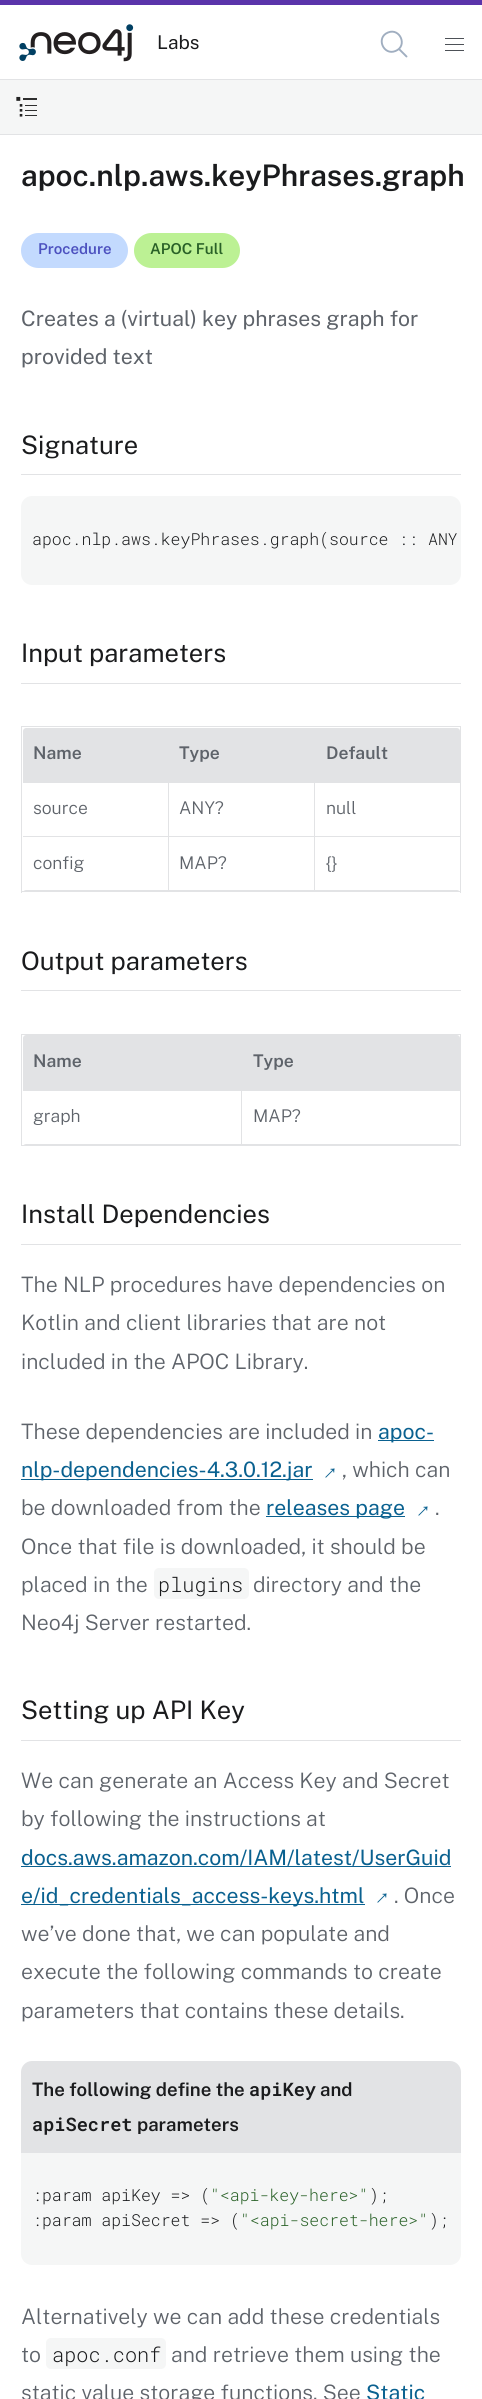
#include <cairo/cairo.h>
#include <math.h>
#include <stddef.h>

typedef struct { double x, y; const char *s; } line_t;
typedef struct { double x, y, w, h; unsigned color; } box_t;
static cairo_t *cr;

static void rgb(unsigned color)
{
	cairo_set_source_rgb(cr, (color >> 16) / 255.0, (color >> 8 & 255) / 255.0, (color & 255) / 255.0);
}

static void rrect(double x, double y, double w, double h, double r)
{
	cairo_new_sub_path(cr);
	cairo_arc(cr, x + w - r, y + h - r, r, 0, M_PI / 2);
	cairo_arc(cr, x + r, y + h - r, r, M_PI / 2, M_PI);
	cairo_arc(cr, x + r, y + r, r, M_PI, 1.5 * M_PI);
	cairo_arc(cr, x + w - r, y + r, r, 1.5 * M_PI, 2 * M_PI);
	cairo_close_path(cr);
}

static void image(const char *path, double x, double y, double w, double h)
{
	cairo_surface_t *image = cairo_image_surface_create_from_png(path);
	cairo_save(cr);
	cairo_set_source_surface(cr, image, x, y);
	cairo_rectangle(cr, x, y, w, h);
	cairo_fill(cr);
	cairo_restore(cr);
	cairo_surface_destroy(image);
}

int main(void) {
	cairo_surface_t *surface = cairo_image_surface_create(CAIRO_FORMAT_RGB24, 482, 2399);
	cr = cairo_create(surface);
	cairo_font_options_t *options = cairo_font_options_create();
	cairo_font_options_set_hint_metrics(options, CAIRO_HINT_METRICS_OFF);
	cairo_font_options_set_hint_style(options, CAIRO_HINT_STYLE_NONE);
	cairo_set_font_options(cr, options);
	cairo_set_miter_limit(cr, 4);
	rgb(0xffffff);
	cairo_paint(cr);
	rgb(0x5a34aa);
	cairo_rectangle(cr, 0, 0, 482, 5);
	cairo_fill(cr);
	rgb(0xe2e3e5);
	cairo_rectangle(cr, 0, 79, 482, 1);
	cairo_fill(cr);
	image("img/1.png", 19, 24, 115, 38);
	cairo_new_path(cr);
	cairo_move_to(cr, 388, 32.5);
	cairo_curve_to(cr, 400, 27.5, 408, 46, 395.5, 51);
	cairo_curve_to(cr, 383.5, 56, 375.5, 37.5, 388, 32.5);
	cairo_close_path(cr);
	cairo_move_to(cr, 399, 49);
	cairo_line_to(cr, 406.5, 56.5);
	rgb(0xa0aec0);
	cairo_set_line_width(cr, 1.9);
	cairo_set_line_cap(cr, CAIRO_LINE_CAP_ROUND);
	cairo_set_line_join(cr, CAIRO_LINE_JOIN_ROUND);
	cairo_stroke(cr);
	{
		static const box_t items[] = {
			{445, 38, 19, 1, 0x4d5157},
			{445, 44, 19, 1, 0x4d5157},
			{445, 50, 19, 1, 0x4d5157},
		};
		for (size_t i = 0; i < sizeof items / sizeof *items; i++) {
			rgb(items[i].color);
			cairo_rectangle(cr, items[i].x, items[i].y, items[i].w, items[i].h);
			cairo_fill(cr);
		}
	}
	rgb(0xe2e3e5);
	cairo_new_path(cr);
	cairo_move_to(cr, 0, 134);
	cairo_line_to(cr, 0, 135);
	cairo_line_to(cr, 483, 135);
	cairo_line_to(cr, 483, 81);
	cairo_line_to(cr, 482, 81);
	cairo_line_to(cr, 482, 134);
	cairo_close_path(cr);
	cairo_fill(cr);
	rgb(0xf5f6f6);
	cairo_rectangle(cr, 0, 80, 482, 54);
	cairo_fill(cr);
	image("img/2.png", 16, 96, 21, 21);
	rgb(0xc3dafe);
	rrect(21, 233, 107, 35, 17.5);
	cairo_fill(cr);
	rgb(0xbcf194);
	rrect(134, 233, 106, 35, 17.5);
	cairo_fill(cr);
	rgb(0xe2e3e5);
	cairo_rectangle(cr, 21, 474, 440, 1);
	cairo_fill(cr);
	rgb(0xf5f6f6);
	rrect(21, 496, 440, 89, 11);
	cairo_fill(cr);
	{
		static const box_t items[] = {
			{21, 683, 440, 1, 0xe2e3e5},
			{21, 726, 440, 1, 0xe2e3e5},
			{460, 726, 1, 167, 0xe2e3e5},
			{21, 891, 440, 1, 0xe2e3e5},
			{21, 726, 1, 167, 0xe2e3e5},
		};
		for (size_t i = 0; i < sizeof items / sizeof *items; i++) {
			rgb(items[i].color);
			cairo_rectangle(cr, items[i].x, items[i].y, items[i].w, items[i].h);
			cairo_fill(cr);
		}
	}
	cairo_new_path(cr);
	cairo_move_to(cr, 26, 728);
	cairo_line_to(cr, 457, 728);
	cairo_curve_to(cr, 458.5, 728, 460, 729.5, 460, 731);
	cairo_line_to(cr, 460, 781);
	cairo_line_to(cr, 23, 781);
	cairo_line_to(cr, 23, 731);
	cairo_curve_to(cr, 23, 729.5, 24.5, 728, 26, 728);
	cairo_close_path(cr);
	cairo_fill(cr);
	{
		static const box_t items[] = {
			{314, 836, 146, 1, 0xe2e3e5},
			{314, 836, 1, 55, 0xe2e3e5},
			{168, 836, 147, 1, 0xe2e3e5},
			{168, 836, 1, 55, 0xe2e3e5},
			{23, 836, 146, 1, 0xe2e3e5},
			{168, 781, 1, 57, 0xe2e3e5},
			{314, 781, 1, 57, 0xe2e3e5},
			{23, 781, 437, 2, 0xe2e3e5},
		};
		for (size_t i = 0; i < sizeof items / sizeof *items; i++) {
			rgb(items[i].color);
			cairo_rectangle(cr, items[i].x, items[i].y, items[i].w, items[i].h);
			cairo_fill(cr);
		}
	}
	cairo_save(cr);
	rrect(23, 728, 437, 163, 3);
	cairo_clip(cr);
	cairo_rectangle(cr, 313, 890, 147, 1);
	cairo_fill(cr);
	cairo_restore(cr);
	cairo_rectangle(cr, 166, 890, 149, 1);
	cairo_fill(cr);
	cairo_save(cr);
	rrect(23, 728, 437, 163, 3);
	cairo_clip(cr);
	cairo_rectangle(cr, 23, 890, 146, 1);
	cairo_fill(cr);
	cairo_restore(cr);
	{
		static const box_t items[] = {
			{21, 990, 440, 1, 0xe2e3e5},
			{21, 1034, 440, 1, 0xe2e3e5},
			{460, 1034, 1, 112, 0xe2e3e5},
			{21, 1145, 440, 1, 0xe2e3e5},
			{21, 1034, 1, 112, 0xe2e3e5},
		};
		for (size_t i = 0; i < sizeof items / sizeof *items; i++) {
			rgb(items[i].color);
			cairo_rectangle(cr, items[i].x, items[i].y, items[i].w, items[i].h);
			cairo_fill(cr);
		}
	}
	cairo_new_path(cr);
	cairo_move_to(cr, 26, 1035);
	cairo_line_to(cr, 457, 1035);
	cairo_curve_to(cr, 458.5, 1035, 460, 1036.5, 460, 1038);
	cairo_line_to(cr, 460, 1089);
	cairo_line_to(cr, 23, 1089);
	cairo_line_to(cr, 23, 1038);
	cairo_curve_to(cr, 23, 1036.5, 24.5, 1035, 26, 1035);
	cairo_close_path(cr);
	cairo_fill(cr);
	cairo_rectangle(cr, 241, 1089, 1, 56);
	cairo_fill(cr);
	cairo_save(cr);
	rrect(23, 1035, 437, 110, 3);
	cairo_clip(cr);
	cairo_rectangle(cr, 240, 1144, 220, 1);
	cairo_fill(cr);
	cairo_rectangle(cr, 23, 1144, 220, 1);
	cairo_fill(cr);
	cairo_restore(cr);
	{
		static const box_t items[] = {
			{23, 1089, 437, 2, 0xe2e3e5},
			{21, 1244, 440, 1, 0xe2e3e5},
			{378, 1440, 56, 1, 0x0a6190},
			{21, 1479, 292, 1, 0x0a6190},
			{266, 1516, 139, 1, 0x0a6190},
		};
		for (size_t i = 0; i < sizeof items / sizeof *items; i++) {
			rgb(items[i].color);
			cairo_rectangle(cr, items[i].x, items[i].y, items[i].w, items[i].h);
			cairo_fill(cr);
		}
	}
	rgb(0xf5f6f6);
	rrect(154, 1568, 95, 31, 5);
	cairo_fill(cr);
	{
		static const box_t items[] = {
			{21, 1740, 440, 1, 0xe2e3e5},
			{21, 1866, 430, 1, 0x0a6190},
			{21, 1904, 344, 1, 0x0a6190},
		};
		for (size_t i = 0; i < sizeof items / sizeof *items; i++) {
			rgb(items[i].color);
			cairo_rectangle(cr, items[i].x, items[i].y, items[i].w, items[i].h);
			cairo_fill(cr);
		}
	}
	rgb(0xe2e3e5);
	cairo_new_path(cr);
	cairo_move_to(cr, 32, 2061);
	cairo_line_to(cr, 450, 2061);
	cairo_curve_to(cr, 456, 2061, 461, 2066, 461, 2072);
	cairo_line_to(cr, 461, 2153);
	cairo_line_to(cr, 21, 2153);
	cairo_line_to(cr, 21, 2072);
	cairo_curve_to(cr, 21, 2066, 26, 2061, 32, 2061);
	cairo_close_path(cr);
	cairo_fill(cr);
	rgb(0xf5f6f6);
	cairo_new_path(cr);
	cairo_move_to(cr, 21, 2153);
	cairo_line_to(cr, 461, 2153);
	cairo_line_to(cr, 461, 2254);
	cairo_curve_to(cr, 461, 2260, 456, 2265, 450, 2265);
	cairo_line_to(cr, 32, 2265);
	cairo_curve_to(cr, 26, 2265, 21, 2260, 21, 2254);
	cairo_close_path(cr);
	cairo_fill(cr);
	rrect(46, 2338, 120, 31, 5);
	cairo_fill(cr);
	cairo_select_font_face(cr, "Public Sans", CAIRO_FONT_SLANT_NORMAL, CAIRO_FONT_WEIGHT_NORMAL);
	cairo_set_font_size(cr, 19);
	rgb(0x1a1b1d);
	cairo_move_to(cr, 157, 49);
	cairo_show_text(cr, "Labs");
	cairo_select_font_face(cr, "Public Sans SemiBold", CAIRO_FONT_SLANT_NORMAL, CAIRO_FONT_WEIGHT_NORMAL);
	cairo_set_font_size(cr, 29.75);
	cairo_move_to(cr, 21, 186);
	cairo_show_text(cr, "apoc.nlp.aws.keyPhrases.graph");
	cairo_set_font_size(cr, 15);
	rgb(0x4c51bf);
	cairo_move_to(cr, 38, 254);
	cairo_show_text(cr, "Procedure");
	rgb(0x296127);
	cairo_move_to(cr, 150, 254);
	cairo_show_text(cr, "APOC Full");
	cairo_select_font_face(cr, "Public Sans", CAIRO_FONT_SLANT_NORMAL, CAIRO_FONT_WEIGHT_NORMAL);
	cairo_set_font_size(cr, 21.25);
	rgb(0x5e636a);
	cairo_move_to(cr, 21, 326);
	cairo_show_text(cr, "Creates a (virtual) key phrases graph for");
	cairo_move_to(cr, 21, 364);
	cairo_show_text(cr, "provided text");
	cairo_set_font_size(cr, 25.5);
	rgb(0x1a1b1d);
	cairo_move_to(cr, 21, 454);
	cairo_show_text(cr, "Signature");
	cairo_select_font_face(cr, "Roboto Mono Light", CAIRO_FONT_SLANT_NORMAL, CAIRO_FONT_WEIGHT_NORMAL);
	cairo_set_font_size(cr, 16.5);
	cairo_move_to(cr, 32, 545);
	cairo_show_text(cr, "apoc.nlp.aws.keyPhrases.graph(source :: ANY");
	cairo_select_font_face(cr, "Public Sans", CAIRO_FONT_SLANT_NORMAL, CAIRO_FONT_WEIGHT_NORMAL);
	cairo_set_font_size(cr, 25.5);
	cairo_move_to(cr, 21, 662);
	cairo_show_text(cr, "Input parameters");
	cairo_select_font_face(cr, "Public Sans SemiBold", CAIRO_FONT_SLANT_NORMAL, CAIRO_FONT_WEIGHT_NORMAL);
	cairo_set_font_size(cr, 17.5);
	rgb(0x5e636a);
	{
		static const line_t items[] = {
			{33, 759, "Name"},
			{179, 759, "Type"},
			{326, 759, "Default"},
		};
		for (size_t i = 0; i < sizeof items / sizeof *items; i++) {
			cairo_move_to(cr, items[i].x, items[i].y);
			cairo_show_text(cr, items[i].s);
		}
	}
	cairo_select_font_face(cr, "Public Sans Light", CAIRO_FONT_SLANT_NORMAL, CAIRO_FONT_WEIGHT_NORMAL);
	{
		static const line_t items[] = {
			{33, 814, "source"},
			{179, 814, "ANY?"},
			{326, 814, "null"},
			{33, 869, "config"},
			{179, 869, "MAP?"},
			{326, 869, "{}"},
		};
		for (size_t i = 0; i < sizeof items / sizeof *items; i++) {
			cairo_move_to(cr, items[i].x, items[i].y);
			cairo_show_text(cr, items[i].s);
		}
	}
	cairo_select_font_face(cr, "Public Sans", CAIRO_FONT_SLANT_NORMAL, CAIRO_FONT_WEIGHT_NORMAL);
	cairo_set_font_size(cr, 25.5);
	rgb(0x1a1b1d);
	cairo_move_to(cr, 21, 970);
	cairo_show_text(cr, "Output parameters");
	cairo_select_font_face(cr, "Public Sans SemiBold", CAIRO_FONT_SLANT_NORMAL, CAIRO_FONT_WEIGHT_NORMAL);
	cairo_set_font_size(cr, 17.5);
	rgb(0x5e636a);
	cairo_move_to(cr, 33, 1067);
	cairo_show_text(cr, "Name");
	cairo_move_to(cr, 253, 1067);
	cairo_show_text(cr, "Type");
	cairo_select_font_face(cr, "Public Sans Light", CAIRO_FONT_SLANT_NORMAL, CAIRO_FONT_WEIGHT_NORMAL);
	cairo_move_to(cr, 33, 1122);
	cairo_show_text(cr, "graph");
	cairo_move_to(cr, 253, 1122);
	cairo_show_text(cr, "MAP?");
	cairo_select_font_face(cr, "Public Sans", CAIRO_FONT_SLANT_NORMAL, CAIRO_FONT_WEIGHT_NORMAL);
	cairo_set_font_size(cr, 25.5);
	rgb(0x1a1b1d);
	cairo_move_to(cr, 21, 1223);
	cairo_show_text(cr, "Install Dependencies");
	cairo_select_font_face(cr, "Public Sans Light", CAIRO_FONT_SLANT_NORMAL, CAIRO_FONT_WEIGHT_NORMAL);
	cairo_set_font_size(cr, 21.25);
	rgb(0x5e636a);
	{
		static const line_t items[] = {
			{21, 1292, "The NLP procedures have dependencies on"},
			{21, 1330, "Kotlin and client libraries that are not"},
			{21, 1369, "included in the APOC Library."},
			{21, 1439, "These dependencies are included in"},
		};
		for (size_t i = 0; i < sizeof items / sizeof *items; i++) {
			cairo_move_to(cr, items[i].x, items[i].y);
			cairo_show_text(cr, items[i].s);
		}
	}
	cairo_select_font_face(cr, "Public Sans", CAIRO_FONT_SLANT_NORMAL, CAIRO_FONT_WEIGHT_NORMAL);
	rgb(0x0a6190);
	cairo_move_to(cr, 378, 1439);
	cairo_show_text(cr, "apoc-");
	cairo_move_to(cr, 21, 1477);
	cairo_show_text(cr, "nlp-dependencies-4.3.0.12.jar");
	cairo_select_font_face(cr, "Liberation Sans", CAIRO_FONT_SLANT_NORMAL, CAIRO_FONT_WEIGHT_NORMAL);
	cairo_save(cr);
	cairo_translate(cr, 325, 1483);
	cairo_rotate(cr, -45 * M_PI / 180);
	cairo_move_to(cr, 0, 0);
	cairo_show_text(cr, "→");
	cairo_restore(cr);
	cairo_select_font_face(cr, "Public Sans Light", CAIRO_FONT_SLANT_NORMAL, CAIRO_FONT_WEIGHT_NORMAL);
	rgb(0x5e636a);
	cairo_move_to(cr, 342, 1477);
	cairo_show_text(cr, ", which can");
	cairo_move_to(cr, 21, 1515);
	cairo_show_text(cr, "be downloaded from the");
	cairo_select_font_face(cr, "Public Sans", CAIRO_FONT_SLANT_NORMAL, CAIRO_FONT_WEIGHT_NORMAL);
	rgb(0x0a6190);
	cairo_move_to(cr, 266, 1515);
	cairo_show_text(cr, "releases page");
	cairo_select_font_face(cr, "Liberation Sans", CAIRO_FONT_SLANT_NORMAL, CAIRO_FONT_WEIGHT_NORMAL);
	cairo_save(cr);
	cairo_translate(cr, 418, 1521);
	cairo_rotate(cr, -45 * M_PI / 180);
	cairo_move_to(cr, 0, 0);
	cairo_show_text(cr, "→");
	cairo_restore(cr);
	cairo_select_font_face(cr, "Public Sans Light", CAIRO_FONT_SLANT_NORMAL, CAIRO_FONT_WEIGHT_NORMAL);
	rgb(0x5e636a);
	{
		static const line_t items[] = {
			{435, 1515, "."},
			{21, 1554, "Once that file is downloaded, it should be"},
			{21, 1592, "placed in the"},
		};
		for (size_t i = 0; i < sizeof items / sizeof *items; i++) {
			cairo_move_to(cr, items[i].x, items[i].y);
			cairo_show_text(cr, items[i].s);
		}
	}
	cairo_select_font_face(cr, "Roboto Mono Light", CAIRO_FONT_SLANT_NORMAL, CAIRO_FONT_WEIGHT_NORMAL);
	cairo_set_font_size(cr, 20.25);
	rgb(0x1a1b1d);
	cairo_move_to(cr, 158, 1592);
	cairo_show_text(cr, "plugins");
	cairo_select_font_face(cr, "Public Sans Light", CAIRO_FONT_SLANT_NORMAL, CAIRO_FONT_WEIGHT_NORMAL);
	cairo_set_font_size(cr, 21.25);
	rgb(0x5e636a);
	cairo_move_to(cr, 253, 1592);
	cairo_show_text(cr, "directory and the");
	cairo_move_to(cr, 21, 1630);
	cairo_show_text(cr, "Neo4j Server restarted.");
	cairo_select_font_face(cr, "Public Sans", CAIRO_FONT_SLANT_NORMAL, CAIRO_FONT_WEIGHT_NORMAL);
	cairo_set_font_size(cr, 25.5);
	rgb(0x1a1b1d);
	cairo_move_to(cr, 21, 1719);
	cairo_show_text(cr, "Setting up API Key");
	cairo_select_font_face(cr, "Public Sans Light", CAIRO_FONT_SLANT_NORMAL, CAIRO_FONT_WEIGHT_NORMAL);
	cairo_set_font_size(cr, 21.25);
	rgb(0x5e636a);
	cairo_move_to(cr, 21, 1788);
	cairo_show_text(cr, "We can generate an Access Key and Secret");
	cairo_move_to(cr, 21, 1826);
	cairo_show_text(cr, "by following the instructions at");
	cairo_select_font_face(cr, "Public Sans", CAIRO_FONT_SLANT_NORMAL, CAIRO_FONT_WEIGHT_NORMAL);
	rgb(0x0a6190);
	cairo_move_to(cr, 21, 1865);
	cairo_show_text(cr, "docs.aws.amazon.com/IAM/latest/UserGuid");
	cairo_move_to(cr, 21, 1903);
	cairo_show_text(cr, "e/id_credentials_access-keys.html");
	cairo_select_font_face(cr, "Liberation Sans", CAIRO_FONT_SLANT_NORMAL, CAIRO_FONT_WEIGHT_NORMAL);
	cairo_save(cr);
	cairo_translate(cr, 377, 1908);
	cairo_rotate(cr, -45 * M_PI / 180);
	cairo_move_to(cr, 0, 0);
	cairo_show_text(cr, "→");
	cairo_restore(cr);
	cairo_select_font_face(cr, "Public Sans Light", CAIRO_FONT_SLANT_NORMAL, CAIRO_FONT_WEIGHT_NORMAL);
	rgb(0x5e636a);
	{
		static const line_t items[] = {
			{394, 1903, ". Once"},
			{21, 1941, "we’ve done that, we can populate and"},
			{21, 1979, "execute the following commands to create"},
			{21, 2018, "parameters that contains these details."},
		};
		for (size_t i = 0; i < sizeof items / sizeof *items; i++) {
			cairo_move_to(cr, items[i].x, items[i].y);
			cairo_show_text(cr, items[i].s);
		}
	}
	cairo_select_font_face(cr, "Public Sans SemiBold", CAIRO_FONT_SLANT_NORMAL, CAIRO_FONT_WEIGHT_NORMAL);
	cairo_set_font_size(cr, 18.6);
	rgb(0x1a1b1d);
	cairo_move_to(cr, 32, 2096);
	cairo_show_text(cr, "The following define the");
	cairo_select_font_face(cr, "Roboto Mono SemiBold", CAIRO_FONT_SLANT_NORMAL, CAIRO_FONT_WEIGHT_NORMAL);
	cairo_move_to(cr, 249, 2096);
	cairo_show_text(cr, "apiKey");
	cairo_select_font_face(cr, "Public Sans SemiBold", CAIRO_FONT_SLANT_NORMAL, CAIRO_FONT_WEIGHT_NORMAL);
	cairo_move_to(cr, 320, 2096);
	cairo_show_text(cr, "and");
	cairo_select_font_face(cr, "Roboto Mono SemiBold", CAIRO_FONT_SLANT_NORMAL, CAIRO_FONT_WEIGHT_NORMAL);
	cairo_move_to(cr, 32, 2131);
	cairo_show_text(cr, "apiSecret");
	cairo_select_font_face(cr, "Public Sans SemiBold", CAIRO_FONT_SLANT_NORMAL, CAIRO_FONT_WEIGHT_NORMAL);
	cairo_move_to(cr, 137, 2131);
	cairo_show_text(cr, "parameters");
	cairo_select_font_face(cr, "Roboto Mono Light", CAIRO_FONT_SLANT_NORMAL, CAIRO_FONT_WEIGHT_NORMAL);
	cairo_set_font_size(cr, 16.5);
	cairo_move_to(cr, 32, 2201);
	cairo_show_text(cr, ":param apiKey => (");
	rgb(0x296127);
	cairo_move_to(cr, 210, 2201);
	cairo_show_text(cr, "\"<api-key-here>\"");
	rgb(0x1a1b1d);
	cairo_move_to(cr, 369, 2201);
	cairo_show_text(cr, ");");
	cairo_move_to(cr, 32, 2226);
	cairo_show_text(cr, ":param apiSecret => (");
	rgb(0x296127);
	cairo_move_to(cr, 240, 2226);
	cairo_show_text(cr, "\"<api-secret-here>\"");
	rgb(0x1a1b1d);
	cairo_move_to(cr, 429, 2226);
	cairo_show_text(cr, ");");
	cairo_select_font_face(cr, "Public Sans Light", CAIRO_FONT_SLANT_NORMAL, CAIRO_FONT_WEIGHT_NORMAL);
	cairo_set_font_size(cr, 21.25);
	rgb(0x5e636a);
	cairo_move_to(cr, 21, 2324);
	cairo_show_text(cr, "Alternatively we can add these credentials");
	cairo_move_to(cr, 21, 2362);
	cairo_show_text(cr, "to");
	cairo_select_font_face(cr, "Roboto Mono Light", CAIRO_FONT_SLANT_NORMAL, CAIRO_FONT_WEIGHT_NORMAL);
	cairo_set_font_size(cr, 20.25);
	rgb(0x1a1b1d);
	cairo_move_to(cr, 52, 2362);
	cairo_show_text(cr, "apoc.conf");
	cairo_select_font_face(cr, "Public Sans Light", CAIRO_FONT_SLANT_NORMAL, CAIRO_FONT_WEIGHT_NORMAL);
	cairo_set_font_size(cr, 21.25);
	rgb(0x5e636a);
	cairo_move_to(cr, 171, 2362);
	cairo_show_text(cr, "and retrieve them using the");
	cairo_move_to(cr, 21, 2400);
	cairo_show_text(cr, "static value storage functions. See");
	cairo_select_font_face(cr, "Public Sans", CAIRO_FONT_SLANT_NORMAL, CAIRO_FONT_WEIGHT_NORMAL);
	rgb(0x0a6190);
	cairo_move_to(cr, 366, 2400);
	cairo_show_text(cr, "Static");
	cairo_surface_write_to_png(surface, "page.png");
	cairo_font_options_destroy(options);
	cairo_destroy(cr);
	cairo_surface_destroy(surface);
	return 0;
}
